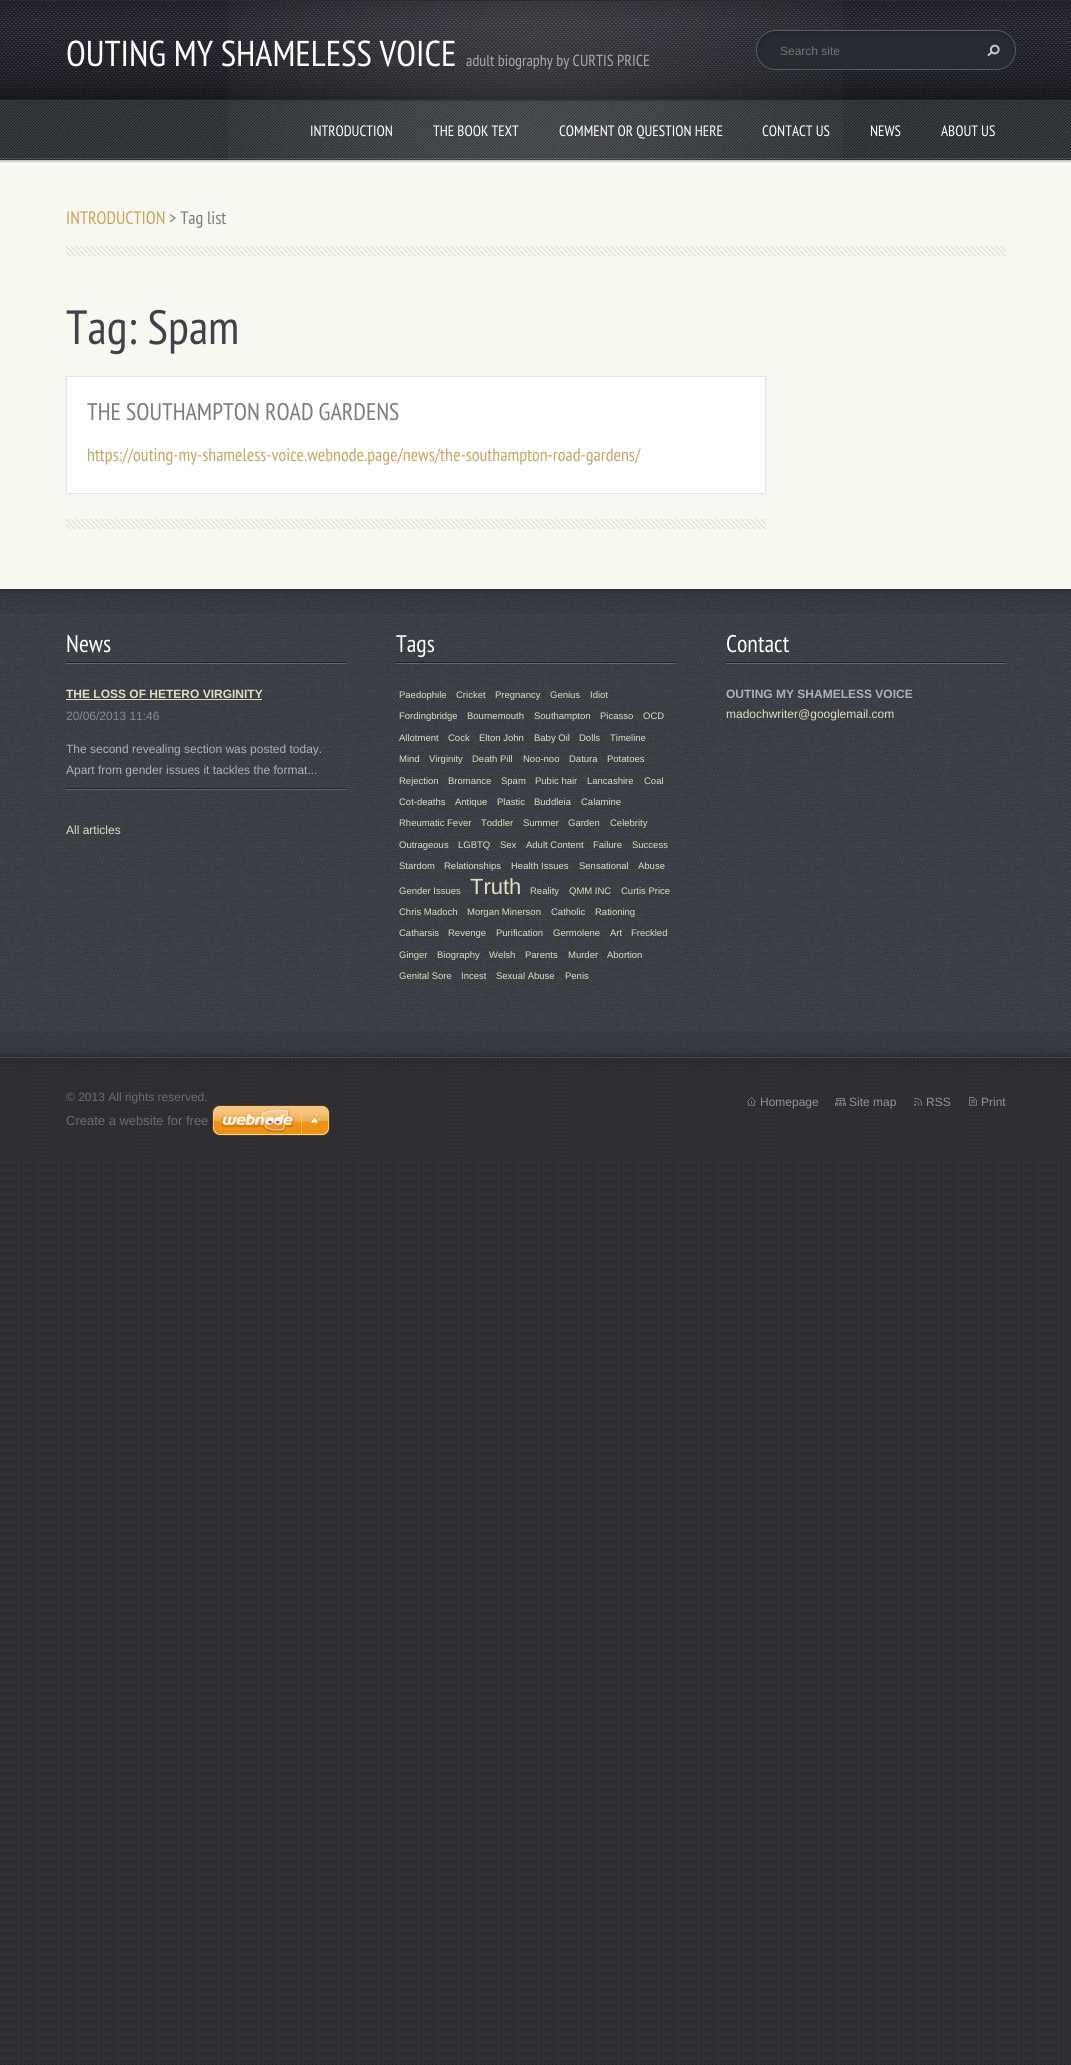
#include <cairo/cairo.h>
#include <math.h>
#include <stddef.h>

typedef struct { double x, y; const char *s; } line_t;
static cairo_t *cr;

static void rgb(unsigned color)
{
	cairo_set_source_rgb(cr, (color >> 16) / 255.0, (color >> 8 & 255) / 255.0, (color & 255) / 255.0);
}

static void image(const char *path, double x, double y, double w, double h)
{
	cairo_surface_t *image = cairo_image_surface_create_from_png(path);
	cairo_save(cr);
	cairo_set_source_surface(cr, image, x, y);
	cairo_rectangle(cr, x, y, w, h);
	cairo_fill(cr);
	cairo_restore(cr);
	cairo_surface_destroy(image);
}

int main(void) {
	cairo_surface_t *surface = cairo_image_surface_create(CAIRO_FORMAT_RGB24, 1071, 2065);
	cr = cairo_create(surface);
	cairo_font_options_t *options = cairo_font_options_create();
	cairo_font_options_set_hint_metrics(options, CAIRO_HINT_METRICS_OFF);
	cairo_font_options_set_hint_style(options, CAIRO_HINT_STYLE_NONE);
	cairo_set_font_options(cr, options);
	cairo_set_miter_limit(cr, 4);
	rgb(0xffffff);
	cairo_paint(cr);
	image("img/1.png", 0, 100, 1071, 1965);
	image("img/2.png", 0, 0, 1071, 100);
	image("img/3.png", 228, 1, 615, 99);
	image("img/4.png", 756, 30, 260, 40);
	image("img/5.png", 987, 44, 13, 13);
	image("img/6.png", 0, 100, 1071, 60);
	image("img/7.png", 228, 101, 615, 59);
	rgb(0xf8f7f0);
	cairo_rectangle(cr, 0, 160, 1071, 429);
	cairo_fill(cr);
	image("img/8.png", 0, 160, 1071, 3);
	image("img/9.png", 66, 246, 940, 10);
	image("img/10.png", 66, 519, 700, 10);
	rgb(0xffffff);
	cairo_rectangle(cr, 66.5, 376.5, 699, 117);
	cairo_fill_preserve(cr);
	rgb(0xe5e5e5);
	cairo_set_line_width(cr, 1);
	cairo_stroke(cr);
	image("img/11.png", 0, 589, 1071, 468);
	image("img/12.png", 0, 589, 1071, 25);
	image("img/13.png", 66, 662, 280, 2);
	image("img/14.png", 66, 788, 280, 2);
	rgb(0xe0dfc0);
	cairo_rectangle(cr, 66, 699, 196, 1);
	cairo_fill(cr);
	image("img/15.png", 396, 662, 280, 2);
	image("img/16.png", 726, 662, 280, 2);
	image("img/17.png", 0, 1031, 1071, 26);
	image("img/18.png", 0, 1057, 1071, 103);
	image("img/19.png", 747, 1097, 9, 9);
	image("img/20.png", 835, 1097, 11, 9);
	image("img/21.png", 914, 1097, 8, 9);
	image("img/22.png", 969, 1096, 8, 10);
	image("img/23.png", 212, 1105, 118, 31);
	cairo_select_font_face(cr, "PT Sans Narrow", CAIRO_FONT_SLANT_NORMAL, CAIRO_FONT_WEIGHT_NORMAL);
	cairo_set_font_size(cr, 36);
	rgb(0xffffff);
	cairo_move_to(cr, 66, 66);
	cairo_show_text(cr, "OUTING MY SHAMELESS VOICE");
	cairo_set_font_size(cr, 16);
	rgb(0xa7a8ab);
	cairo_move_to(cr, 466, 66);
	cairo_show_text(cr, "adult biography by CURTIS PRICE");
	cairo_select_font_face(cr, "Liberation Sans", CAIRO_FONT_SLANT_NORMAL, CAIRO_FONT_WEIGHT_NORMAL);
	cairo_set_font_size(cr, 12);
	rgb(0x757575);
	cairo_move_to(cr, 780, 55);
	cairo_show_text(cr, "Search site");
	cairo_select_font_face(cr, "PT Sans Narrow", CAIRO_FONT_SLANT_NORMAL, CAIRO_FONT_WEIGHT_NORMAL);
	cairo_set_font_size(cr, 15);
	rgb(0xffffff);
	{
		static const line_t items[] = {
			{310, 136, "INTRODUCTION"},
			{433, 136, "THE BOOK TEXT"},
			{559, 136, "COMMENT OR QUESTION HERE"},
			{762, 136, "CONTACT US"},
			{870, 136, "NEWS"},
			{941, 136, "ABOUT US"},
		};
		for (size_t i = 0; i < sizeof items / sizeof *items; i++) {
			cairo_move_to(cr, items[i].x, items[i].y);
			cairo_show_text(cr, items[i].s);
		}
	}
	cairo_set_font_size(cr, 18);
	rgb(0xc7a461);
	cairo_move_to(cr, 66, 224);
	cairo_show_text(cr, "INTRODUCTION");
	rgb(0x7c7c7c);
	cairo_move_to(cr, 169, 224);
	cairo_show_text(cr, "> Tag list");
	cairo_set_font_size(cr, 48);
	rgb(0x3f424a);
	cairo_move_to(cr, 66, 344);
	cairo_show_text(cr, "Tag: Spam");
	cairo_set_font_size(cr, 24);
	rgb(0x7c7c7c);
	cairo_move_to(cr, 87, 420);
	cairo_show_text(cr, "THE SOUTHAMPTON ROAD GARDENS");
	cairo_set_font_size(cr, 18);
	rgb(0xc7a461);
	cairo_move_to(cr, 87, 461);
	cairo_show_text(cr, "https://outing-my-shameless-voice.webnode.page/news/the-southampton-road-gardens/");
	cairo_set_font_size(cr, 24);
	rgb(0xffffff);
	cairo_move_to(cr, 66, 652);
	cairo_show_text(cr, "News");
	cairo_select_font_face(cr, "Liberation Sans", CAIRO_FONT_SLANT_NORMAL, CAIRO_FONT_WEIGHT_BOLD);
	cairo_set_font_size(cr, 12);
	rgb(0xe0dfc0);
	cairo_move_to(cr, 66, 698);
	cairo_show_text(cr, "THE LOSS OF HETERO VIRGINITY");
	cairo_select_font_face(cr, "Liberation Sans", CAIRO_FONT_SLANT_NORMAL, CAIRO_FONT_WEIGHT_NORMAL);
	rgb(0x858a98);
	cairo_move_to(cr, 66, 720);
	cairo_show_text(cr, "20/06/2013 11:46");
	rgb(0xabb1c2);
	cairo_move_to(cr, 66, 753);
	cairo_show_text(cr, "The second revealing section was posted today.");
	cairo_move_to(cr, 66, 774);
	cairo_show_text(cr, "Apart from gender issues it tackles the format...");
	rgb(0xe0dfc0);
	cairo_move_to(cr, 66, 834);
	cairo_show_text(cr, "All articles");
	cairo_select_font_face(cr, "PT Sans Narrow", CAIRO_FONT_SLANT_NORMAL, CAIRO_FONT_WEIGHT_NORMAL);
	cairo_set_font_size(cr, 24);
	rgb(0xffffff);
	cairo_move_to(cr, 396, 652);
	cairo_show_text(cr, "Tags");
	cairo_select_font_face(cr, "Liberation Sans", CAIRO_FONT_SLANT_NORMAL, CAIRO_FONT_WEIGHT_NORMAL);
	cairo_set_font_size(cr, 9.5);
	rgb(0xe0dfc0);
	{
		static const line_t items[] = {
			{399, 698, "Paedophile"},
			{456, 698, "Cricket"},
			{495, 698, "Pregnancy"},
			{550, 698, "Genius"},
			{590, 698, "Idiot"},
			{399, 719, "Fordingbridge"},
			{467, 719, "Bournemouth"},
			{534, 719, "Southampton"},
			{600, 719, "Picasso"},
			{643, 719, "OCD"},
			{399, 741, "Allotment"},
			{448, 741, "Cock"},
			{479, 741, "Elton John"},
			{534, 741, "Baby Oil"},
			{579, 741, "Dolls"},
			{610, 741, "Timeline"},
			{399, 762, "Mind"},
			{429, 762, "Virginity"},
			{472, 762, "Death Pill"},
			{523, 762, "Noo-noo"},
			{569, 762, "Datura"},
			{607, 762, "Potatoes"},
			{399, 784, "Rejection"},
			{448, 784, "Bromance"},
			{501, 784, "Spam"},
			{535, 784, "Pubic hair"},
			{587, 784, "Lancashire"},
			{644, 784, "Coal"},
			{399, 805, "Cot-deaths"},
			{455, 805, "Antique"},
			{497, 805, "Plastic"},
			{534, 805, "Buddleia"},
			{581, 805, "Calamine"},
			{399, 826, "Rheumatic Fever"},
			{481, 826, "Toddler"},
			{523, 826, "Summer"},
			{568, 826, "Garden"},
			{610, 826, "Celebrity"},
			{399, 848, "Outrageous"},
			{458, 848, "LGBTQ"},
			{500, 848, "Sex"},
			{526, 848, "Adult Content"},
			{593, 848, "Failure"},
			{632, 848, "Success"},
			{399, 869, "Stardom"},
			{444, 869, "Relationships"},
			{511, 869, "Health Issues"},
			{579, 869, "Sensational"},
			{638, 869, "Abuse"},
			{399, 894, "Gender Issues"},
		};
		for (size_t i = 0; i < sizeof items / sizeof *items; i++) {
			cairo_move_to(cr, items[i].x, items[i].y);
			cairo_show_text(cr, items[i].s);
		}
	}
	cairo_set_font_size(cr, 22);
	cairo_move_to(cr, 470, 894);
	cairo_show_text(cr, "Truth");
	cairo_set_font_size(cr, 9.5);
	{
		static const line_t items[] = {
			{530, 894, "Reality"},
			{569, 894, "QMM INC"},
			{621, 894, "Curtis Price"},
			{399, 915, "Chris Madoch"},
			{467, 915, "Morgan Minerson"},
			{551, 915, "Catholic"},
			{595, 915, "Rationing"},
			{399, 936, "Catharsis"},
			{448, 936, "Revenge"},
			{496, 936, "Purification"},
			{553, 936, "Germolene"},
			{610, 936, "Art"},
			{631, 936, "Freckled"},
			{399, 958, "Ginger"},
			{437, 958, "Biography"},
			{489, 958, "Welsh"},
			{525, 958, "Parents"},
			{568, 958, "Murder"},
			{607, 958, "Abortion"},
			{399, 979, "Genital Sore"},
			{461, 979, "Incest"},
			{496, 979, "Sexual Abuse"},
			{565, 979, "Penis"},
		};
		for (size_t i = 0; i < sizeof items / sizeof *items; i++) {
			cairo_move_to(cr, items[i].x, items[i].y);
			cairo_show_text(cr, items[i].s);
		}
	}
	cairo_select_font_face(cr, "PT Sans Narrow", CAIRO_FONT_SLANT_NORMAL, CAIRO_FONT_WEIGHT_NORMAL);
	cairo_set_font_size(cr, 24);
	rgb(0xffffff);
	cairo_move_to(cr, 726, 652);
	cairo_show_text(cr, "Contact");
	cairo_select_font_face(cr, "Liberation Sans", CAIRO_FONT_SLANT_NORMAL, CAIRO_FONT_WEIGHT_BOLD);
	cairo_set_font_size(cr, 12);
	rgb(0xabb1c2);
	cairo_move_to(cr, 726, 698);
	cairo_show_text(cr, "OUTING MY SHAMELESS VOICE");
	cairo_select_font_face(cr, "Liberation Sans", CAIRO_FONT_SLANT_NORMAL, CAIRO_FONT_WEIGHT_NORMAL);
	rgb(0xe0dfc0);
	cairo_move_to(cr, 726, 718);
	cairo_show_text(cr, "madochwriter@googlemail.com");
	cairo_save(cr);
	cairo_rectangle(cr, 66, 1087, 460, 41);
	cairo_clip(cr);
	rgb(0x686b7a);
	cairo_move_to(cr, 66, 1101);
	cairo_show_text(cr, "© 2013 All rights reserved.");
	cairo_restore(cr);
	rgb(0x8f949e);
	{
		static const line_t items[] = {
			{760, 1106, "Homepage"},
			{849, 1106, "Site map"},
			{926, 1106, "RSS"},
			{981, 1106, "Print"},
		};
		for (size_t i = 0; i < sizeof items / sizeof *items; i++) {
			cairo_move_to(cr, items[i].x, items[i].y);
			cairo_show_text(cr, items[i].s);
		}
	}
	cairo_set_font_size(cr, 13);
	rgb(0x686b7a);
	cairo_move_to(cr, 66, 1125);
	cairo_show_text(cr, "Create a website for free");
	cairo_surface_write_to_png(surface, "page.png");
	cairo_font_options_destroy(options);
	cairo_destroy(cr);
	cairo_surface_destroy(surface);
	return 0;
}
